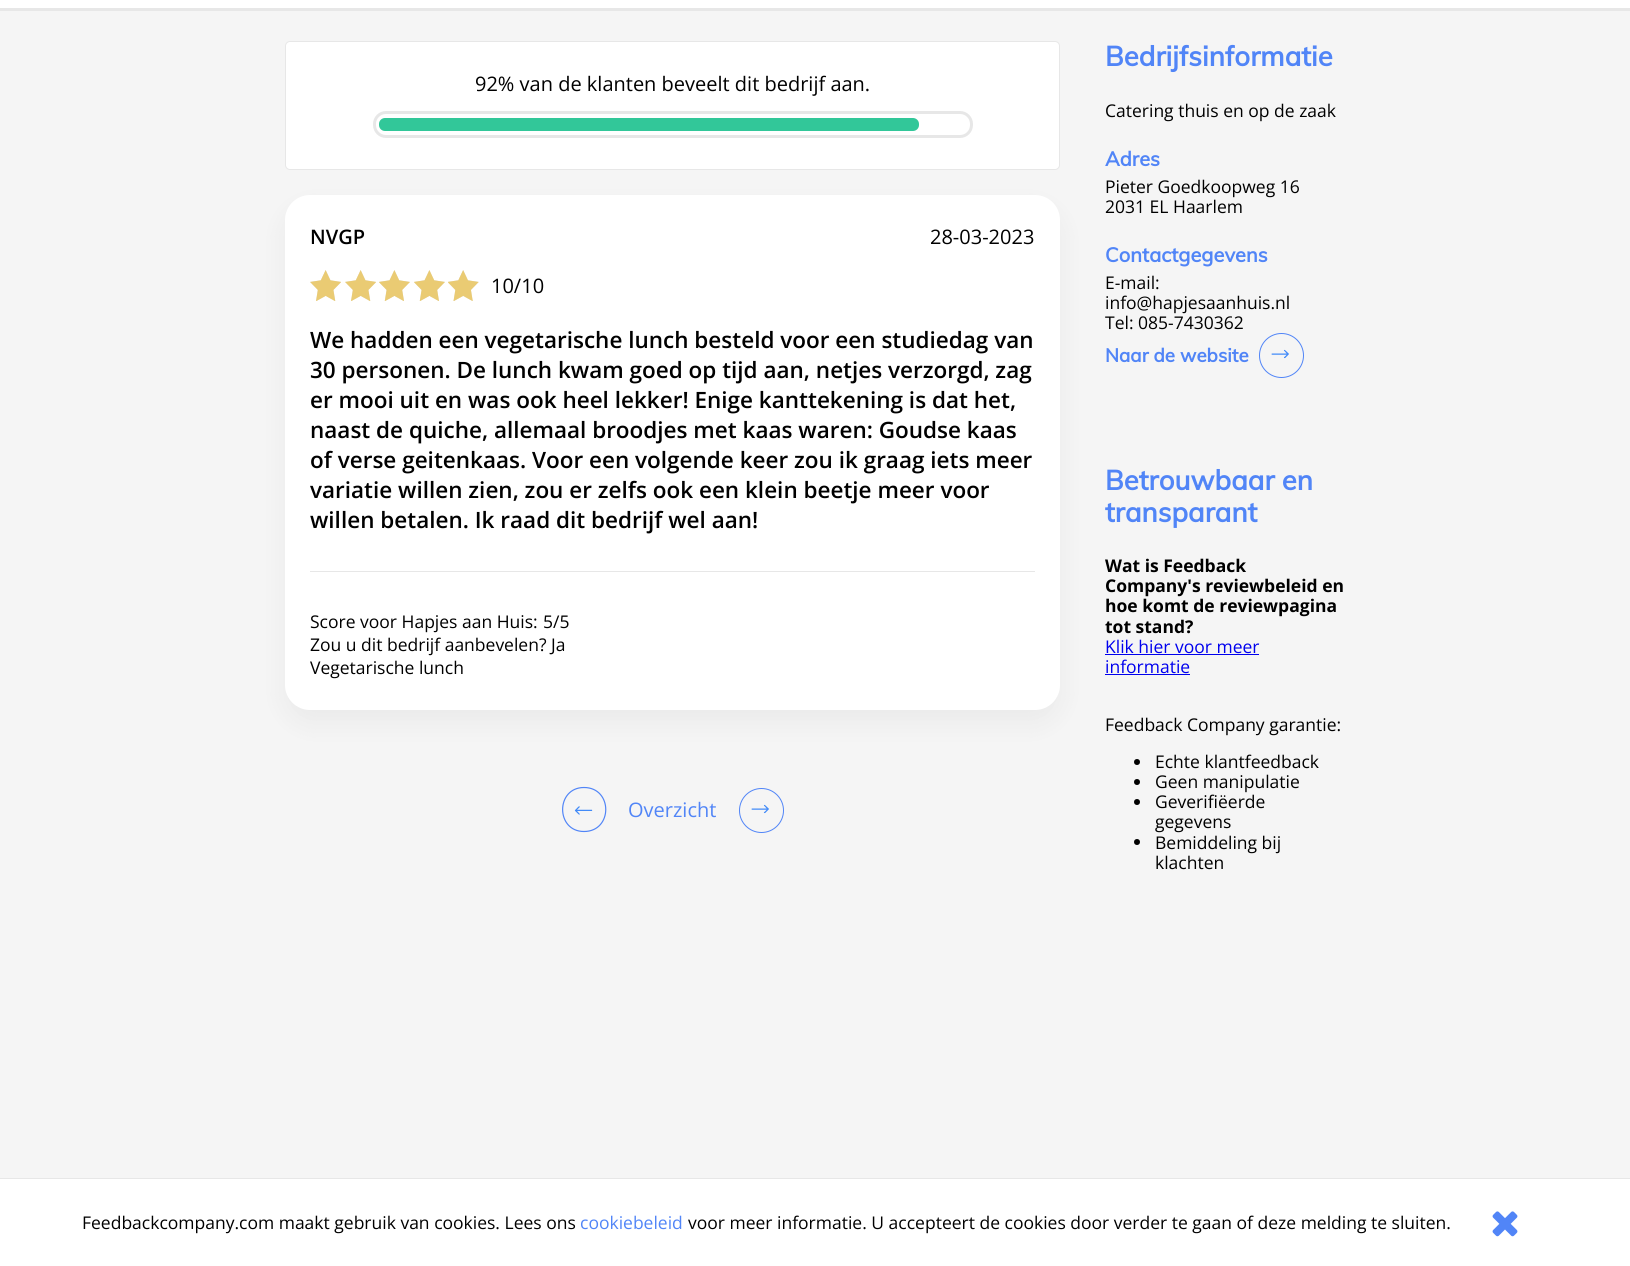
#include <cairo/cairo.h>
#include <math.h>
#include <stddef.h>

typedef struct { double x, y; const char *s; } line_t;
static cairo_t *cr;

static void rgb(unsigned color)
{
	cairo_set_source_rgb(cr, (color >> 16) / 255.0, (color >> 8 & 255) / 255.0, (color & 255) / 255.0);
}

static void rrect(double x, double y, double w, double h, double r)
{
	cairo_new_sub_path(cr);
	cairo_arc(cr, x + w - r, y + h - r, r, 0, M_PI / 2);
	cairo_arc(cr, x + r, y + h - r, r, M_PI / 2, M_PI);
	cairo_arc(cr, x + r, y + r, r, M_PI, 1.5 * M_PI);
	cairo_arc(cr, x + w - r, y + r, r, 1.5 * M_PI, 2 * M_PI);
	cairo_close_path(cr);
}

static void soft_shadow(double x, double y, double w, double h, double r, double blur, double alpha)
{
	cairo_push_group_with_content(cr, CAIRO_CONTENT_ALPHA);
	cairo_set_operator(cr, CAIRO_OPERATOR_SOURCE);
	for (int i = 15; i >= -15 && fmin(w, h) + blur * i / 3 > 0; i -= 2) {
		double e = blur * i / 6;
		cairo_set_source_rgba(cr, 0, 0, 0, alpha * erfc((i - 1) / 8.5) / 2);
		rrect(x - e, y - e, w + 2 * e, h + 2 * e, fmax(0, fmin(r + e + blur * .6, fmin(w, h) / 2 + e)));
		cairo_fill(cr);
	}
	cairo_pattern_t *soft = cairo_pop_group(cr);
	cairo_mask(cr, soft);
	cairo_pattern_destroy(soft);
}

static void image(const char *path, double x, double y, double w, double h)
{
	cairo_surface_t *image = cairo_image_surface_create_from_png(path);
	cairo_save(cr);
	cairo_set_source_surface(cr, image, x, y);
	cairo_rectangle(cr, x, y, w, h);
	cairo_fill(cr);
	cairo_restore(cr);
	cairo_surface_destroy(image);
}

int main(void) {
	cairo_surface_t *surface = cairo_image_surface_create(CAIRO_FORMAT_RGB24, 1630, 1266);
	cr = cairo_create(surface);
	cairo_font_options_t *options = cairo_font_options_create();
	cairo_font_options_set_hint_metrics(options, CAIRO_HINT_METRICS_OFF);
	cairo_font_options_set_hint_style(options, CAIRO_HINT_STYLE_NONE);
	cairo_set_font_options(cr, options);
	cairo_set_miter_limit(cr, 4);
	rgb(0xf5f5f5);
	cairo_paint(cr);
	rgb(0xffffff);
	cairo_rectangle(cr, 0, 0, 1630, 8);
	cairo_fill(cr);
	rgb(0xe7e7e7);
	cairo_rectangle(cr, 0, 8, 1630, 3);
	cairo_fill(cr);
	rgb(0xffffff);
	rrect(285.5, 41.5, 774, 128, 4.5);
	cairo_fill_preserve(cr);
	rgb(0xe7e7e7);
	cairo_set_line_width(cr, 1);
	cairo_stroke(cr);
	rrect(374.5, 112.5, 597, 24, 11.5);
	cairo_set_line_width(cr, 3);
	cairo_stroke(cr);
	rgb(0x32c799);
	rrect(379, 118, 540, 13, 6);
	cairo_fill(cr);
	rgb(0x1e1e1e);
	soft_shadow(285, 208, 775, 515, 25, 12.5, 0.05);
	rgb(0xffffff);
	rrect(285, 195, 775, 515, 25);
	cairo_fill(cr);
	image("img/1.png", 310, 270, 31, 31);
	image("img/2.png", 310, 270, 31, 31);
	image("img/1.png", 345, 270, 31, 31);
	image("img/2.png", 345, 270, 31, 31);
	image("img/3.png", 379, 270, 31, 31);
	image("img/4.png", 379, 270, 31, 31);
	image("img/3.png", 414, 270, 31, 31);
	image("img/4.png", 414, 270, 31, 31);
	image("img/5.png", 448, 270, 31, 31);
	image("img/6.png", 448, 270, 31, 31);
	rgb(0xe7e7e7);
	cairo_rectangle(cr, 310, 571, 725, 1);
	cairo_fill(cr);
	cairo_new_path(cr);
	cairo_move_to(cr, 584, 831.5);
	cairo_curve_to(cr, 555.5, 831.5, 555.5, 787.5, 584, 787.5);
	cairo_curve_to(cr, 613, 787.5, 613, 831.5, 584, 831.5);
	cairo_close_path(cr);
	rgb(0x5185f7);
	cairo_set_line_width(cr, 1.2);
	cairo_stroke(cr);
	image("img/7.png", 574, 806, 19, 9);
	cairo_arc(cr, 761.5, 810.5, 22, 0, 2 * M_PI);
	cairo_set_line_width(cr, 1);
	cairo_stroke(cr);
	image("img/8.png", 751, 804, 18, 10);
	cairo_arc(cr, 1281.5, 355.5, 22, 0, 2 * M_PI);
	cairo_stroke(cr);
	image("img/9.png", 1271, 349, 18, 10);
	rgb(0x0000ee);
	cairo_rectangle(cr, 1105, 654, 154, 1);
	cairo_fill(cr);
	cairo_rectangle(cr, 1105, 674, 85, 1);
	cairo_fill(cr);
	rgb(0x000000);
	cairo_arc(cr, 1137, 762, 3, 0, 2 * M_PI);
	cairo_fill(cr);
	cairo_arc(cr, 1137, 782, 3, 0, 2 * M_PI);
	cairo_fill(cr);
	cairo_arc(cr, 1137, 802, 3, 0, 2 * M_PI);
	cairo_fill(cr);
	cairo_arc(cr, 1137, 842, 3, 0, 2 * M_PI);
	cairo_fill(cr);
	rgb(0xffffff);
	cairo_rectangle(cr, 0, 1179, 1630, 87);
	cairo_fill(cr);
	rgb(0xe7e7e7);
	cairo_rectangle(cr, 0, 1178, 1630, 1);
	cairo_fill(cr);
	image("img/10.png", 1492, 1211, 26, 26);
	cairo_select_font_face(cr, "Open Sans", CAIRO_FONT_SLANT_NORMAL, CAIRO_FONT_WEIGHT_NORMAL);
	cairo_set_font_size(cr, 20);
	rgb(0x000000);
	cairo_move_to(cr, 475, 91);
	cairo_show_text(cr, "92% van de klanten beveelt dit bedrijf aan.");
	cairo_select_font_face(cr, "Open Sans SemiBold", CAIRO_FONT_SLANT_NORMAL, CAIRO_FONT_WEIGHT_NORMAL);
	cairo_move_to(cr, 310, 244);
	cairo_show_text(cr, "NVGP");
	cairo_select_font_face(cr, "Open Sans", CAIRO_FONT_SLANT_NORMAL, CAIRO_FONT_WEIGHT_NORMAL);
	cairo_move_to(cr, 491, 293);
	cairo_show_text(cr, "10/10");
	cairo_move_to(cr, 930, 244);
	cairo_show_text(cr, "28-03-2023");
	cairo_select_font_face(cr, "Open Sans SemiBold", CAIRO_FONT_SLANT_NORMAL, CAIRO_FONT_WEIGHT_NORMAL);
	cairo_set_font_size(cr, 22.5);
	{
		static const line_t items[] = {
			{310, 348, "We hadden een vegetarische lunch besteld voor een studiedag van"},
			{310, 378, "30 personen. De lunch kwam goed op tijd aan, netjes verzorgd, zag"},
			{310, 408, "er mooi uit en was ook heel lekker! Enige kanttekening is dat het,"},
			{310, 438, "naast de quiche, allemaal broodjes met kaas waren: Goudse kaas"},
			{310, 468, "of verse geitenkaas. Voor een volgende keer zou ik graag iets meer"},
			{310, 498, "variatie willen zien, zou er zelfs ook een klein beetje meer voor"},
			{310, 528, "willen betalen. Ik raad dit bedrijf wel aan!"},
		};
		for (size_t i = 0; i < sizeof items / sizeof *items; i++) {
			cairo_move_to(cr, items[i].x, items[i].y);
			cairo_show_text(cr, items[i].s);
		}
	}
	cairo_select_font_face(cr, "Open Sans", CAIRO_FONT_SLANT_NORMAL, CAIRO_FONT_WEIGHT_NORMAL);
	cairo_set_font_size(cr, 17.5);
	{
		static const line_t items[] = {
			{310, 628, "Score voor Hapjes aan Huis:"},
			{543, 628, "5/5"},
			{310, 651, "Zou u dit bedrijf aanbevelen?"},
			{551, 651, "Ja"},
			{310, 674, "Vegetarische lunch"},
		};
		for (size_t i = 0; i < sizeof items / sizeof *items; i++) {
			cairo_move_to(cr, items[i].x, items[i].y);
			cairo_show_text(cr, items[i].s);
		}
	}
	cairo_set_font_size(cr, 20);
	rgb(0x5185f7);
	cairo_move_to(cr, 628, 817);
	cairo_show_text(cr, "Overzicht");
	cairo_select_font_face(cr, "Muli", CAIRO_FONT_SLANT_NORMAL, CAIRO_FONT_WEIGHT_BOLD);
	cairo_set_font_size(cr, 27.5);
	cairo_move_to(cr, 1105, 66);
	cairo_show_text(cr, "Bedrijfsinformatie");
	cairo_select_font_face(cr, "Open Sans", CAIRO_FONT_SLANT_NORMAL, CAIRO_FONT_WEIGHT_NORMAL);
	cairo_set_font_size(cr, 17.5);
	rgb(0x000000);
	cairo_move_to(cr, 1105, 117);
	cairo_show_text(cr, "Catering thuis en op de zaak");
	cairo_select_font_face(cr, "Muli", CAIRO_FONT_SLANT_NORMAL, CAIRO_FONT_WEIGHT_BOLD);
	cairo_set_font_size(cr, 20);
	rgb(0x5185f7);
	cairo_move_to(cr, 1105, 166);
	cairo_show_text(cr, "Adres");
	cairo_select_font_face(cr, "Open Sans", CAIRO_FONT_SLANT_NORMAL, CAIRO_FONT_WEIGHT_NORMAL);
	cairo_set_font_size(cr, 17.5);
	rgb(0x000000);
	cairo_move_to(cr, 1105, 193);
	cairo_show_text(cr, "Pieter Goedkoopweg 16");
	cairo_move_to(cr, 1105, 213);
	cairo_show_text(cr, "2031 EL Haarlem");
	cairo_select_font_face(cr, "Muli", CAIRO_FONT_SLANT_NORMAL, CAIRO_FONT_WEIGHT_BOLD);
	cairo_set_font_size(cr, 20);
	rgb(0x5185f7);
	cairo_move_to(cr, 1105, 262);
	cairo_show_text(cr, "Contactgegevens");
	cairo_select_font_face(cr, "Open Sans", CAIRO_FONT_SLANT_NORMAL, CAIRO_FONT_WEIGHT_NORMAL);
	cairo_set_font_size(cr, 17.5);
	rgb(0x000000);
	{
		static const line_t items[] = {
			{1105, 289, "E-mail:"},
			{1105, 309, "info@hapjesaanhuis.nl"},
			{1105, 329, "Tel: 085-7430362"},
		};
		for (size_t i = 0; i < sizeof items / sizeof *items; i++) {
			cairo_move_to(cr, items[i].x, items[i].y);
			cairo_show_text(cr, items[i].s);
		}
	}
	cairo_select_font_face(cr, "Muli", CAIRO_FONT_SLANT_NORMAL, CAIRO_FONT_WEIGHT_BOLD);
	cairo_set_font_size(cr, 18.75);
	rgb(0x5185f7);
	cairo_move_to(cr, 1105, 362);
	cairo_show_text(cr, "Naar de website");
	cairo_set_font_size(cr, 27.5);
	cairo_move_to(cr, 1105, 490);
	cairo_show_text(cr, "Betrouwbaar en");
	cairo_move_to(cr, 1105, 522);
	cairo_show_text(cr, "transparant");
	cairo_select_font_face(cr, "Open Sans", CAIRO_FONT_SLANT_NORMAL, CAIRO_FONT_WEIGHT_BOLD);
	cairo_set_font_size(cr, 17.5);
	rgb(0x000000);
	{
		static const line_t items[] = {
			{1105, 572, "Wat is Feedback"},
			{1105, 592, "Company's reviewbeleid en"},
			{1105, 612, "hoe komt de reviewpagina"},
			{1105, 633, "tot stand?"},
		};
		for (size_t i = 0; i < sizeof items / sizeof *items; i++) {
			cairo_move_to(cr, items[i].x, items[i].y);
			cairo_show_text(cr, items[i].s);
		}
	}
	cairo_select_font_face(cr, "Open Sans", CAIRO_FONT_SLANT_NORMAL, CAIRO_FONT_WEIGHT_NORMAL);
	rgb(0x0000ee);
	cairo_move_to(cr, 1105, 653);
	cairo_show_text(cr, "Klik hier voor meer");
	cairo_move_to(cr, 1105, 673);
	cairo_show_text(cr, "informatie");
	rgb(0x000000);
	{
		static const line_t items[] = {
			{1105, 731, "Feedback Company garantie:"},
			{1155, 768, "Echte klantfeedback"},
			{1155, 788, "Geen manipulatie"},
			{1155, 808, "Geverifiëerde"},
			{1155, 828, "gegevens"},
			{1155, 849, "Bemiddeling bij"},
			{1155, 869, "klachten"},
			{82, 1229, "Feedbackcompany.com maakt gebruik van cookies. Lees ons"},
		};
		for (size_t i = 0; i < sizeof items / sizeof *items; i++) {
			cairo_move_to(cr, items[i].x, items[i].y);
			cairo_show_text(cr, items[i].s);
		}
	}
	rgb(0x5185f7);
	cairo_move_to(cr, 580, 1229);
	cairo_show_text(cr, "cookiebeleid");
	rgb(0x000000);
	cairo_move_to(cr, 688, 1229);
	cairo_show_text(cr, "voor meer informatie. U accepteert de cookies door verder te gaan of deze melding te sluiten.");
	cairo_surface_write_to_png(surface, "page.png");
	cairo_font_options_destroy(options);
	cairo_destroy(cr);
	cairo_surface_destroy(surface);
	return 0;
}
